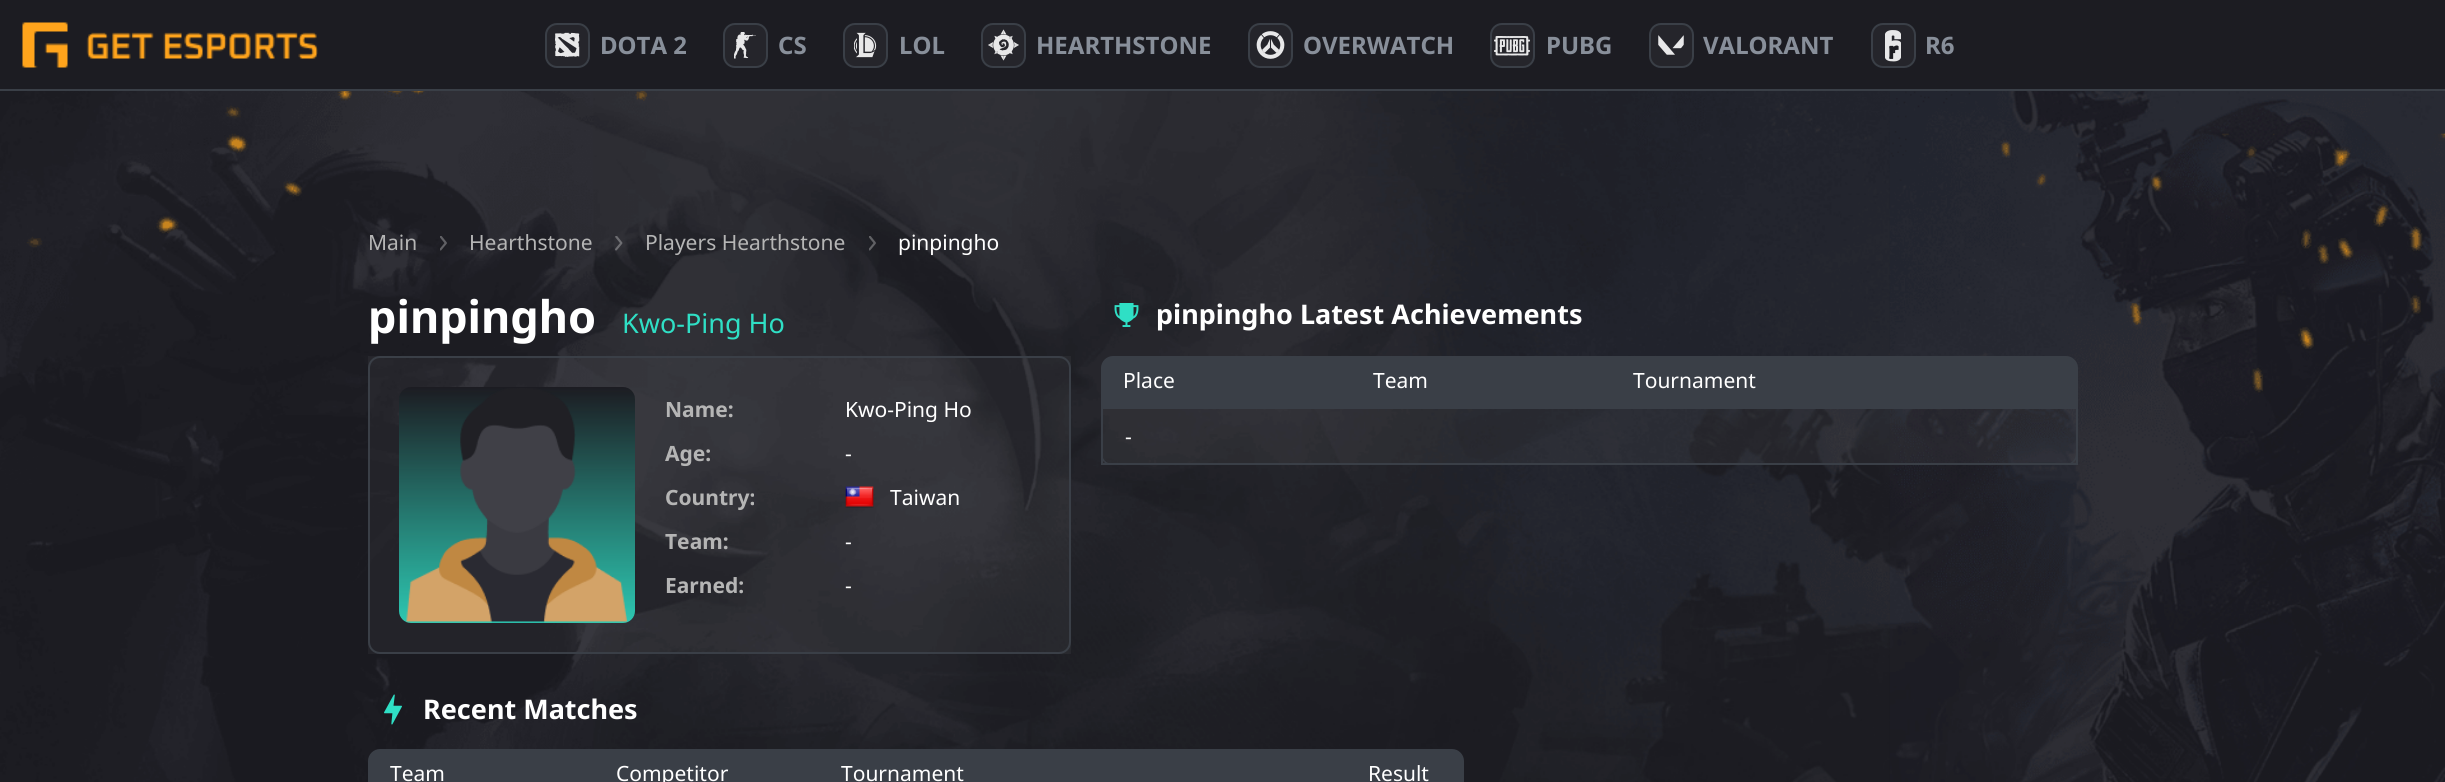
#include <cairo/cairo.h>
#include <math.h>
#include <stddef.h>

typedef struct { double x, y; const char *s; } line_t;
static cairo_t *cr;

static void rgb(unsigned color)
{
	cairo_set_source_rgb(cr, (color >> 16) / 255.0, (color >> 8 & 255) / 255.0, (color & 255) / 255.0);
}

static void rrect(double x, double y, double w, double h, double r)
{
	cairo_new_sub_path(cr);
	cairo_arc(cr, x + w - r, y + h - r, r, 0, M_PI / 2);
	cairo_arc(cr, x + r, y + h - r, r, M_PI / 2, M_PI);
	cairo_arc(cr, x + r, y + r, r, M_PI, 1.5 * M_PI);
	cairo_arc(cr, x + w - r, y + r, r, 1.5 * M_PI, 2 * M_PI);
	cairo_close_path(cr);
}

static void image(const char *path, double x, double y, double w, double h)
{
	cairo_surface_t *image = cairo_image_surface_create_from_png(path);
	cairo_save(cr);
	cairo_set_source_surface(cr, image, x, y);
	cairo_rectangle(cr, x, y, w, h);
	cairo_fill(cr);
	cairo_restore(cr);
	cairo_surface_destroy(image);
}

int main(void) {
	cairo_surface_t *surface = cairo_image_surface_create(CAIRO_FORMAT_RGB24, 2445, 782);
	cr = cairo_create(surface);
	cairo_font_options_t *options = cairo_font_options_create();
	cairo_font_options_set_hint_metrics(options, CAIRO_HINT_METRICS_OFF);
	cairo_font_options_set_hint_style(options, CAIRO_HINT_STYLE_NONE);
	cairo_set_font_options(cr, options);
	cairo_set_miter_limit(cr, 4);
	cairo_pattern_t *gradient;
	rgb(0x1c1c22);
	cairo_paint(cr);
	image("img/1.png", 0, 91, 2445, 691);
	image("img/2.png", 22, 22, 296, 46);
	rgb(0x25252b);
	rrect(546, 24, 43, 43, 11);
	cairo_fill_preserve(cr);
	rgb(0x3a3f47);
	cairo_stroke(cr);
	image("img/3.png", 555, 32, 25, 25);
	rgb(0x25252b);
	rrect(724, 24, 43, 43, 11);
	cairo_fill_preserve(cr);
	rgb(0x3a3f47);
	cairo_stroke(cr);
	image("img/4.png", 734, 32, 22, 27);
	rgb(0x25252b);
	rrect(844, 24, 43, 43, 11);
	cairo_fill_preserve(cr);
	rgb(0x3a3f47);
	cairo_stroke(cr);
	image("img/5.png", 854, 32, 23, 26);
	rgb(0x25252b);
	rrect(982, 24, 43, 43, 11);
	cairo_fill_preserve(cr);
	rgb(0x3a3f47);
	cairo_stroke(cr);
	image("img/6.png", 988, 29, 31, 32);
	rgb(0x25252b);
	rrect(1249, 24, 43, 43, 11);
	cairo_fill_preserve(cr);
	rgb(0x3a3f47);
	cairo_stroke(cr);
	image("img/7.png", 1256, 31, 29, 28);
	rgb(0x25252b);
	rrect(1491, 24, 43, 43, 11);
	cairo_fill_preserve(cr);
	rgb(0x3a3f47);
	cairo_stroke(cr);
	image("img/8.png", 1494, 36, 36, 20);
	rgb(0x25252b);
	rrect(1650, 24, 43, 43, 11);
	cairo_fill_preserve(cr);
	rgb(0x3a3f47);
	cairo_stroke(cr);
	image("img/9.png", 1658, 35, 26, 20);
	rgb(0x25252b);
	rrect(1872, 24, 43, 43, 11);
	cairo_fill_preserve(cr);
	rgb(0x3a3f47);
	cairo_stroke(cr);
	image("img/10.png", 1885, 30, 16, 32);
	cairo_rectangle(cr, 0, 89, 2445, 2);
	cairo_fill(cr);
	image("img/11.png", 440, 236, 7, 15);
	image("img/12.png", 615, 236, 8, 15);
	image("img/13.png", 869, 236, 7, 15);
	cairo_set_source_rgba(cr, 1, 1, 1, 0.04);
	cairo_rectangle(cr, 368, 356, 703, 298);
	cairo_fill(cr);
	rrect(369, 357, 701, 296, 11);
	rgb(0x3a3f47);
	cairo_stroke(cr);
	rgb(0x1c1c22);
	rrect(399, 387, 236, 236, 12);
	cairo_fill(cr);
	gradient = cairo_pattern_create_linear(517, 656, 517, 387);
	cairo_pattern_add_color_stop_rgba(gradient, 0, 0.184, 0.875, 0.773, 1);
	cairo_pattern_add_color_stop_rgba(gradient, 1, 0.184, 0.875, 0.773, 0);
	cairo_set_source(cr, gradient);
	cairo_pattern_destroy(gradient);
	rrect(399, 387, 236, 236, 12);
	cairo_fill(cr);
	image("img/14.png", 406, 388, 221, 235);
	image("img/15.png", 845, 486, 29, 22);
	image("img/16.png", 1114, 303, 25, 24);
	rgb(0x3a3f47);
	cairo_new_path(cr);
	cairo_move_to(cr, 1113, 356);
	cairo_line_to(cr, 1352, 356);
	cairo_line_to(cr, 1352, 407);
	cairo_line_to(cr, 1101, 407);
	cairo_line_to(cr, 1101, 368);
	cairo_curve_to(cr, 1101, 361.5, 1106.5, 356, 1113, 356);
	cairo_close_path(cr);
	cairo_fill(cr);
	cairo_rectangle(cr, 1352, 356, 259, 51);
	cairo_fill(cr);
	cairo_new_path(cr);
	cairo_move_to(cr, 1611, 356);
	cairo_line_to(cr, 2066, 356);
	cairo_curve_to(cr, 2072.5, 356, 2078, 361.5, 2078, 368);
	cairo_line_to(cr, 2078, 407);
	cairo_line_to(cr, 1611, 407);
	cairo_close_path(cr);
	cairo_fill(cr);
	cairo_set_source_rgba(cr, 1, 1, 1, 0.04);
	cairo_rectangle(cr, 1102, 408, 975, 56);
	cairo_fill_preserve(cr);
	rgb(0x3a3f47);
	cairo_stroke(cr);
	cairo_new_path(cr);
	cairo_move_to(cr, 1352, 465);
	cairo_line_to(cr, 1350, 464);
	cairo_line_to(cr, 1113, 464);
	cairo_curve_to(cr, 1110, 464, 1107, 463, 1105, 461);
	cairo_line_to(cr, 1104, 462);
	cairo_curve_to(cr, 1106, 464, 1110, 465, 1113, 465);
	cairo_close_path(cr);
	cairo_fill(cr);
	cairo_new_path(cr);
	cairo_move_to(cr, 1102, 408);
	cairo_line_to(cr, 1101, 406);
	cairo_line_to(cr, 1101, 453);
	cairo_curve_to(cr, 1101, 456, 1102, 460, 1104, 462);
	cairo_line_to(cr, 1105, 461);
	cairo_curve_to(cr, 1103, 459, 1102, 456, 1102, 453);
	cairo_close_path(cr);
	cairo_fill(cr);
	cairo_new_path(cr);
	cairo_move_to(cr, 2078, 406);
	cairo_line_to(cr, 2078, 456);
	cairo_curve_to(cr, 2077, 458, 2076, 460, 2074, 462);
	cairo_line_to(cr, 2073, 461);
	cairo_curve_to(cr, 2075, 459, 2076, 456, 2076, 453);
	cairo_line_to(cr, 2076, 408);
	cairo_close_path(cr);
	cairo_fill(cr);
	cairo_new_path(cr);
	cairo_move_to(cr, 2066, 465);
	cairo_curve_to(cr, 2069, 465, 2072, 464, 2074, 462);
	cairo_line_to(cr, 2073, 461);
	cairo_curve_to(cr, 2071, 463, 2069, 464, 2066, 464);
	cairo_line_to(cr, 1612, 464);
	cairo_line_to(cr, 1611, 465);
	cairo_close_path(cr);
	cairo_fill(cr);
	image("img/17.png", 384, 694, 18, 31);
	cairo_new_path(cr);
	cairo_move_to(cr, 380, 749);
	cairo_line_to(cr, 593, 749);
	cairo_line_to(cr, 593, 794);
	cairo_line_to(cr, 368, 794);
	cairo_line_to(cr, 368, 761);
	cairo_curve_to(cr, 368, 754.5, 373.5, 749, 380, 749);
	cairo_close_path(cr);
	cairo_fill(cr);
	cairo_rectangle(cr, 593, 749, 753, 33);
	cairo_fill(cr);
	cairo_new_path(cr);
	cairo_move_to(cr, 1346, 749);
	cairo_line_to(cr, 1452, 749);
	cairo_curve_to(cr, 1458.5, 749, 1464, 754.5, 1464, 761);
	cairo_line_to(cr, 1464, 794);
	cairo_line_to(cr, 1346, 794);
	cairo_close_path(cr);
	cairo_fill(cr);
	cairo_select_font_face(cr, "Noto Sans", CAIRO_FONT_SLANT_NORMAL, CAIRO_FONT_WEIGHT_BOLD);
	cairo_set_font_size(cr, 24);
	rgb(0x888f9a);
	{
		static const line_t items[] = {
			{600, 54, "DOTA 2"},
			{778, 54, "CS"},
			{899, 54, "LOL"},
			{1036, 54, "HEARTHSTONE"},
			{1303, 54, "OVERWATCH"},
			{1546, 54, "PUBG"},
			{1703, 54, "VALORANT"},
			{1925, 54, "R6"},
		};
		for (size_t i = 0; i < sizeof items / sizeof *items; i++) {
			cairo_move_to(cr, items[i].x, items[i].y);
			cairo_show_text(cr, items[i].s);
		}
	}
	cairo_select_font_face(cr, "Noto Sans", CAIRO_FONT_SLANT_NORMAL, CAIRO_FONT_WEIGHT_NORMAL);
	cairo_set_font_size(cr, 21);
	rgb(0xb5b5b5);
	{
		static const line_t items[] = {
			{368, 250, "Main"},
			{469, 250, "Hearthstone"},
			{645, 250, "Players Hearthstone"},
		};
		for (size_t i = 0; i < sizeof items / sizeof *items; i++) {
			cairo_move_to(cr, items[i].x, items[i].y);
			cairo_show_text(cr, items[i].s);
		}
	}
	rgb(0xffffff);
	cairo_move_to(cr, 898, 250);
	cairo_show_text(cr, "pinpingho");
	cairo_select_font_face(cr, "Noto Sans", CAIRO_FONT_SLANT_NORMAL, CAIRO_FONT_WEIGHT_BOLD);
	cairo_set_font_size(cr, 45);
	cairo_move_to(cr, 368, 333);
	cairo_show_text(cr, "pinpingho");
	cairo_select_font_face(cr, "Noto Sans", CAIRO_FONT_SLANT_NORMAL, CAIRO_FONT_WEIGHT_NORMAL);
	cairo_set_font_size(cr, 27);
	rgb(0x2fdfc5);
	cairo_move_to(cr, 622, 333);
	cairo_show_text(cr, "Kwo-Ping Ho");
	cairo_select_font_face(cr, "Noto Sans", CAIRO_FONT_SLANT_NORMAL, CAIRO_FONT_WEIGHT_BOLD);
	cairo_set_font_size(cr, 21);
	rgb(0xb5b5b5);
	cairo_move_to(cr, 665, 417);
	cairo_show_text(cr, "Name:");
	cairo_select_font_face(cr, "Noto Sans", CAIRO_FONT_SLANT_NORMAL, CAIRO_FONT_WEIGHT_NORMAL);
	rgb(0xffffff);
	cairo_move_to(cr, 845, 417);
	cairo_show_text(cr, "Kwo-Ping Ho");
	cairo_select_font_face(cr, "Noto Sans", CAIRO_FONT_SLANT_NORMAL, CAIRO_FONT_WEIGHT_BOLD);
	rgb(0xb5b5b5);
	cairo_move_to(cr, 665, 461);
	cairo_show_text(cr, "Age:");
	cairo_select_font_face(cr, "Noto Sans", CAIRO_FONT_SLANT_NORMAL, CAIRO_FONT_WEIGHT_NORMAL);
	rgb(0xffffff);
	cairo_move_to(cr, 845, 461);
	cairo_show_text(cr, "-");
	cairo_select_font_face(cr, "Noto Sans", CAIRO_FONT_SLANT_NORMAL, CAIRO_FONT_WEIGHT_BOLD);
	rgb(0xb5b5b5);
	cairo_move_to(cr, 665, 505);
	cairo_show_text(cr, "Country:");
	cairo_select_font_face(cr, "Noto Sans", CAIRO_FONT_SLANT_NORMAL, CAIRO_FONT_WEIGHT_NORMAL);
	rgb(0xffffff);
	cairo_move_to(cr, 890, 505);
	cairo_show_text(cr, "Taiwan");
	cairo_select_font_face(cr, "Noto Sans", CAIRO_FONT_SLANT_NORMAL, CAIRO_FONT_WEIGHT_BOLD);
	rgb(0xb5b5b5);
	cairo_move_to(cr, 665, 549);
	cairo_show_text(cr, "Team:");
	cairo_select_font_face(cr, "Noto Sans", CAIRO_FONT_SLANT_NORMAL, CAIRO_FONT_WEIGHT_NORMAL);
	rgb(0xffffff);
	cairo_move_to(cr, 845, 549);
	cairo_show_text(cr, "-");
	cairo_select_font_face(cr, "Noto Sans", CAIRO_FONT_SLANT_NORMAL, CAIRO_FONT_WEIGHT_BOLD);
	rgb(0xb5b5b5);
	cairo_move_to(cr, 665, 593);
	cairo_show_text(cr, "Earned:");
	cairo_select_font_face(cr, "Noto Sans", CAIRO_FONT_SLANT_NORMAL, CAIRO_FONT_WEIGHT_NORMAL);
	rgb(0xffffff);
	cairo_move_to(cr, 845, 593);
	cairo_show_text(cr, "-");
	cairo_select_font_face(cr, "Noto Sans", CAIRO_FONT_SLANT_NORMAL, CAIRO_FONT_WEIGHT_BOLD);
	cairo_set_font_size(cr, 27);
	cairo_move_to(cr, 1156, 324);
	cairo_show_text(cr, "pinpingho Latest Achievements");
	cairo_select_font_face(cr, "Noto Sans", CAIRO_FONT_SLANT_NORMAL, CAIRO_FONT_WEIGHT_NORMAL);
	cairo_set_font_size(cr, 21);
	{
		static const line_t items[] = {
			{1123, 388, "Place"},
			{1373, 388, "Team"},
			{1633, 388, "Tournament"},
			{1125, 444, "-"},
		};
		for (size_t i = 0; i < sizeof items / sizeof *items; i++) {
			cairo_move_to(cr, items[i].x, items[i].y);
			cairo_show_text(cr, items[i].s);
		}
	}
	cairo_select_font_face(cr, "Noto Sans", CAIRO_FONT_SLANT_NORMAL, CAIRO_FONT_WEIGHT_BOLD);
	cairo_set_font_size(cr, 27);
	cairo_move_to(cr, 423, 719);
	cairo_show_text(cr, "Recent Matches");
	cairo_select_font_face(cr, "Noto Sans", CAIRO_FONT_SLANT_NORMAL, CAIRO_FONT_WEIGHT_NORMAL);
	cairo_set_font_size(cr, 21);
	{
		static const line_t items[] = {
			{390, 781, "Team"},
			{616, 781, "Competitor"},
			{841, 781, "Tournament"},
			{1368, 781, "Result"},
		};
		for (size_t i = 0; i < sizeof items / sizeof *items; i++) {
			cairo_move_to(cr, items[i].x, items[i].y);
			cairo_show_text(cr, items[i].s);
		}
	}
	cairo_surface_write_to_png(surface, "page.png");
	cairo_font_options_destroy(options);
	cairo_destroy(cr);
	cairo_surface_destroy(surface);
	return 0;
}
